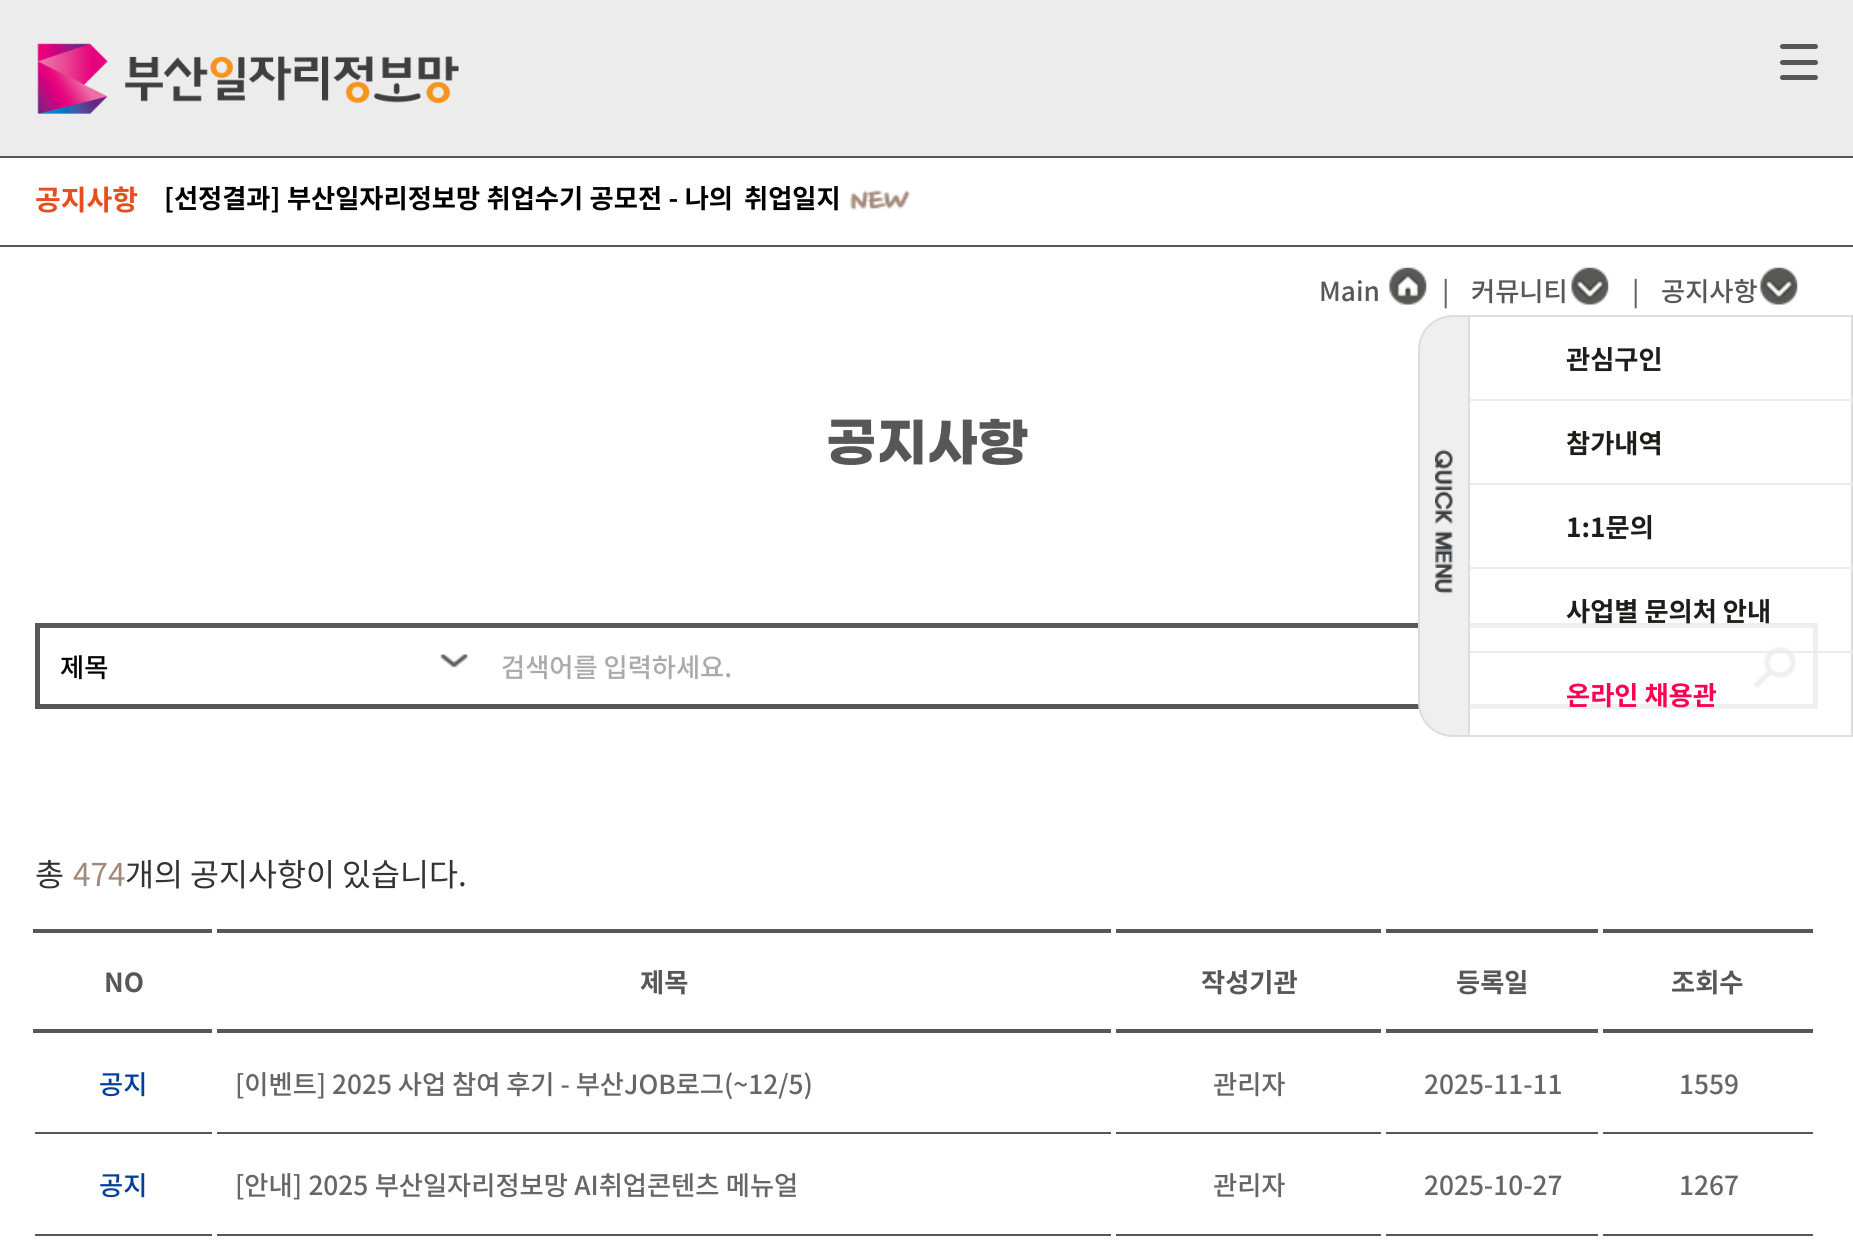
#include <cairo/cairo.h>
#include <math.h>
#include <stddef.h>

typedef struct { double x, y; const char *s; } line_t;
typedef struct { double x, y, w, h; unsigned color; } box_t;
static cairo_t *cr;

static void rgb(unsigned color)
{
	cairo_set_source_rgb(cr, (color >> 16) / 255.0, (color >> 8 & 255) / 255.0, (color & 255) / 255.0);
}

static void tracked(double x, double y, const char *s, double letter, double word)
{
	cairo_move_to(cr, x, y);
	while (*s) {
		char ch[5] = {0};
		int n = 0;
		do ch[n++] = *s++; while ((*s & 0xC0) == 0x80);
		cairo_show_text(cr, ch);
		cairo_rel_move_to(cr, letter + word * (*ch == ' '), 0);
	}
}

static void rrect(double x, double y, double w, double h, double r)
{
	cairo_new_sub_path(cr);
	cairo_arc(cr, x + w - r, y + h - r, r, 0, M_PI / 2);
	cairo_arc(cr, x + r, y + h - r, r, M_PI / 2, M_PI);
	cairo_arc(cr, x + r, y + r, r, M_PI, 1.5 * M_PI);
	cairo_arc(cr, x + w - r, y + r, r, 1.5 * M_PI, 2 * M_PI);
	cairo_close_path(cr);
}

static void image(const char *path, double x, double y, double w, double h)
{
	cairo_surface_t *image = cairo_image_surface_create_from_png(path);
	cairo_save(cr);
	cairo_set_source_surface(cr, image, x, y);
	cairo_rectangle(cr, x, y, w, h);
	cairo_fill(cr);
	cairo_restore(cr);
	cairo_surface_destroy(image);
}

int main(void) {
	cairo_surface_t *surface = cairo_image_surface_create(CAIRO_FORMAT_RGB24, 1853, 1260);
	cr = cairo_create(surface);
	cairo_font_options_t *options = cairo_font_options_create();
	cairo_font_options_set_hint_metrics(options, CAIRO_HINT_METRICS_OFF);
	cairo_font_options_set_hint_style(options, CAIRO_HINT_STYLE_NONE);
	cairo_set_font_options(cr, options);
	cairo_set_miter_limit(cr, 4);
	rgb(0xffffff);
	cairo_paint(cr);
	rgb(0xececec);
	cairo_rectangle(cr, 0, 0, 1853, 156);
	cairo_fill(cr);
	rgb(0x575654);
	cairo_rectangle(cr, 0, 156, 1853, 2);
	cairo_fill(cr);
	image("img/1.png", 37, 43, 422, 71);
	rgb(0x575756);
	rrect(1780, 44, 38, 5, 2.5);
	cairo_fill(cr);
	rrect(1780, 60, 38, 5, 2.5);
	cairo_fill(cr);
	rrect(1780, 75, 38, 5, 2.5);
	cairo_fill(cr);
	rgb(0x585856);
	cairo_rectangle(cr, 0, 245, 1853, 2);
	cairo_fill(cr);
	image("img/2.png", 850, 190, 61, 21);
	image("img/3.png", 1389, 267, 38, 38);
	image("img/4.png", 1571, 267, 38, 38);
	image("img/5.png", 1760, 267, 38, 38);
	cairo_rectangle(cr, 37.5, 625.5, 1778, 81);
	rgb(0x575757);
	cairo_set_line_width(cr, 5);
	cairo_stroke(cr);
	image("img/6.png", 440, 654, 28, 14);
	image("img/7.png", 1753, 647, 43, 41);
	cairo_rectangle(cr, 33, 929, 1785, 4);
	cairo_fill(cr);
	rgb(0xffffff);
	cairo_rectangle(cr, 212, 929, 5, 4);
	cairo_fill(cr);
	cairo_rectangle(cr, 1111, 929, 5, 4);
	cairo_fill(cr);
	cairo_rectangle(cr, 1381, 929, 5, 4);
	cairo_fill(cr);
	cairo_rectangle(cr, 1598, 929, 5, 4);
	cairo_fill(cr);
	rgb(0x575757);
	cairo_rectangle(cr, 33, 1029, 1785, 4);
	cairo_fill(cr);
	rgb(0xffffff);
	cairo_rectangle(cr, 1813, 929, 5, 4);
	cairo_fill(cr);
	cairo_rectangle(cr, 212, 1029, 5, 4);
	cairo_fill(cr);
	cairo_rectangle(cr, 1111, 1029, 5, 4);
	cairo_fill(cr);
	cairo_rectangle(cr, 1381, 1029, 5, 4);
	cairo_fill(cr);
	cairo_rectangle(cr, 1598, 1029, 5, 4);
	cairo_fill(cr);
	rgb(0x575757);
	cairo_rectangle(cr, 35, 1132, 1782, 2);
	cairo_fill(cr);
	rgb(0xffffff);
	cairo_rectangle(cr, 1813, 1029, 5, 4);
	cairo_fill(cr);
	cairo_rectangle(cr, 212, 1131, 5, 3);
	cairo_fill(cr);
	cairo_rectangle(cr, 1111, 1131, 5, 3);
	cairo_fill(cr);
	cairo_rectangle(cr, 1381, 1131, 5, 3);
	cairo_fill(cr);
	cairo_rectangle(cr, 1598, 1131, 5, 3);
	cairo_fill(cr);
	rgb(0x575757);
	cairo_rectangle(cr, 35, 1234, 1782, 2);
	cairo_fill(cr);
	rgb(0xffffff);
	cairo_rectangle(cr, 1813, 1131, 4, 3);
	cairo_fill(cr);
	cairo_rectangle(cr, 212, 1232, 5, 4);
	cairo_fill(cr);
	cairo_rectangle(cr, 1111, 1232, 5, 4);
	cairo_fill(cr);
	cairo_rectangle(cr, 1381, 1232, 5, 4);
	cairo_fill(cr);
	cairo_rectangle(cr, 1598, 1232, 5, 4);
	cairo_fill(cr);
	cairo_rectangle(cr, 1813, 1232, 4, 4);
	cairo_fill(cr);
	cairo_set_source_rgba(cr, 1, 1, 1, 0.9);
	cairo_rectangle(cr, 1470, 623, 348, 86);
	cairo_fill(cr);
	cairo_rectangle(cr, 1469, 316, 383, 420);
	rgb(0xdddddd);
	cairo_set_line_width(cr, 2);
	cairo_stroke(cr);
	rgb(0xefefef);
	cairo_new_path(cr);
	cairo_move_to(cr, 1453, 316);
	cairo_line_to(cr, 1469, 316);
	cairo_line_to(cr, 1469, 736);
	cairo_line_to(cr, 1453, 736);
	cairo_curve_to(cr, 1434, 736, 1419, 721, 1419, 702);
	cairo_line_to(cr, 1419, 350);
	cairo_curve_to(cr, 1419, 331, 1434, 316, 1453, 316);
	cairo_close_path(cr);
	cairo_fill_preserve(cr);
	rgb(0xdddddd);
	cairo_stroke(cr);
	image("img/8.png", 1435, 449, 18, 145);
	{
		static const box_t items[] = {
			{1470, 399, 383, 2, 0xebebeb},
			{1470, 483, 383, 2, 0xebebeb},
			{1470, 567, 383, 2, 0xebebeb},
			{1470, 651, 383, 2, 0xebebeb},
		};
		for (size_t i = 0; i < sizeof items / sizeof *items; i++) {
			rgb(items[i].color);
			cairo_rectangle(cr, items[i].x, items[i].y, items[i].w, items[i].h);
			cairo_fill(cr);
		}
	}
	cairo_select_font_face(cr, "Noto Sans KR", CAIRO_FONT_SLANT_NORMAL, CAIRO_FONT_WEIGHT_BOLD);
	cairo_set_font_size(cr, 28);
	rgb(0xe84e1b);
	cairo_move_to(cr, 35, 210);
	cairo_show_text(cr, "공지사항");
	cairo_set_font_size(cr, 26.25);
	rgb(0x000000);
	tracked(164, 208, "[선정결과] 부산일자리정보망 취업수기 공모전 - 나의", 0, 0.5);
	tracked(744, 208, "취업일지", 0, 0.5);
	cairo_select_font_face(cr, "Noto Sans KR Medium", CAIRO_FONT_SLANT_NORMAL, CAIRO_FONT_WEIGHT_NORMAL);
	rgb(0x575757);
	cairo_move_to(cr, 1319, 301);
	cairo_show_text(cr, "Main");
	rgb(0x666666);
	cairo_move_to(cr, 1442, 301);
	cairo_show_text(cr, "|");
	rgb(0x575757);
	cairo_move_to(cr, 1471, 301);
	cairo_show_text(cr, "커뮤니티");
	rgb(0x666666);
	cairo_move_to(cr, 1632, 301);
	cairo_show_text(cr, "|");
	rgb(0x575757);
	cairo_move_to(cr, 1661, 301);
	cairo_show_text(cr, "공지사항");
	cairo_select_font_face(cr, "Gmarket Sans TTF", CAIRO_FONT_SLANT_NORMAL, CAIRO_FONT_WEIGHT_BOLD);
	cairo_set_font_size(cr, 52.5);
	cairo_move_to(cr, 826, 459);
	cairo_show_text(cr, "공지사항");
	cairo_select_font_face(cr, "Noto Sans KR Medium", CAIRO_FONT_SLANT_NORMAL, CAIRO_FONT_WEIGHT_NORMAL);
	cairo_set_font_size(cr, 26.25);
	rgb(0x000000);
	cairo_move_to(cr, 60, 677);
	cairo_show_text(cr, "제목");
	rgb(0xaaaaaa);
	cairo_move_to(cr, 501, 677);
	cairo_show_text(cr, "검색어를 입력하세요.");
	cairo_select_font_face(cr, "Noto Sans KR", CAIRO_FONT_SLANT_NORMAL, CAIRO_FONT_WEIGHT_NORMAL);
	cairo_set_font_size(cr, 31.5);
	rgb(0x333333);
	cairo_move_to(cr, 35, 886);
	cairo_show_text(cr, "총");
	rgb(0xa3897a);
	cairo_move_to(cr, 73, 886);
	cairo_show_text(cr, "474");
	rgb(0x333333);
	cairo_move_to(cr, 125, 886);
	cairo_show_text(cr, "개의 공지사항이 있습니다.");
	cairo_select_font_face(cr, "Noto Sans KR", CAIRO_FONT_SLANT_NORMAL, CAIRO_FONT_WEIGHT_BOLD);
	cairo_set_font_size(cr, 26.25);
	rgb(0x575757);
	{
		static const line_t items[] = {
			{104, 992, "NO"},
			{640, 992, "제목"},
			{1201, 992, "작성기관"},
			{1456, 992, "등록일"},
			{1671, 992, "조회수"},
		};
		for (size_t i = 0; i < sizeof items / sizeof *items; i++) {
			cairo_move_to(cr, items[i].x, items[i].y);
			cairo_show_text(cr, items[i].s);
		}
	}
	cairo_select_font_face(cr, "Noto Sans KR Medium", CAIRO_FONT_SLANT_NORMAL, CAIRO_FONT_WEIGHT_NORMAL);
	rgb(0x014099);
	cairo_move_to(cr, 99, 1094);
	cairo_show_text(cr, "공지");
	rgb(0x666666);
	{
		static const line_t items[] = {
			{235, 1094, "[이벤트] 2025 사업 참여 후기 - 부산JOB로그(~12/5)"},
			{1213, 1094, "관리자"},
			{1424, 1094, "2025-11-11"},
			{1679, 1094, "1559"},
		};
		for (size_t i = 0; i < sizeof items / sizeof *items; i++) {
			cairo_move_to(cr, items[i].x, items[i].y);
			cairo_show_text(cr, items[i].s);
		}
	}
	rgb(0x014099);
	cairo_move_to(cr, 99, 1195);
	cairo_show_text(cr, "공지");
	rgb(0x666666);
	tracked(235, 1195, "[안내] 2025 부산일자리정보망 AI취업콘텐츠 메뉴얼", 0, 0.5);
	{
		static const line_t items[] = {
			{1213, 1195, "관리자"},
			{1424, 1195, "2025-10-27"},
			{1679, 1195, "1267"},
		};
		for (size_t i = 0; i < sizeof items / sizeof *items; i++) {
			cairo_move_to(cr, items[i].x, items[i].y);
			cairo_show_text(cr, items[i].s);
		}
	}
	cairo_select_font_face(cr, "Noto Sans KR", CAIRO_FONT_SLANT_NORMAL, CAIRO_FONT_WEIGHT_BOLD);
	rgb(0x1d1e1c);
	{
		static const line_t items[] = {
			{1566, 369, "관심구인"},
			{1566, 453, "참가내역"},
			{1566, 537, "1:1문의"},
			{1566, 621, "사업별 문의처 안내"},
		};
		for (size_t i = 0; i < sizeof items / sizeof *items; i++) {
			cairo_move_to(cr, items[i].x, items[i].y);
			cairo_show_text(cr, items[i].s);
		}
	}
	rgb(0xff0051);
	cairo_move_to(cr, 1566, 705);
	cairo_show_text(cr, "온라인 채용관");
	cairo_surface_write_to_png(surface, "page.png");
	cairo_font_options_destroy(options);
	cairo_destroy(cr);
	cairo_surface_destroy(surface);
	return 0;
}
